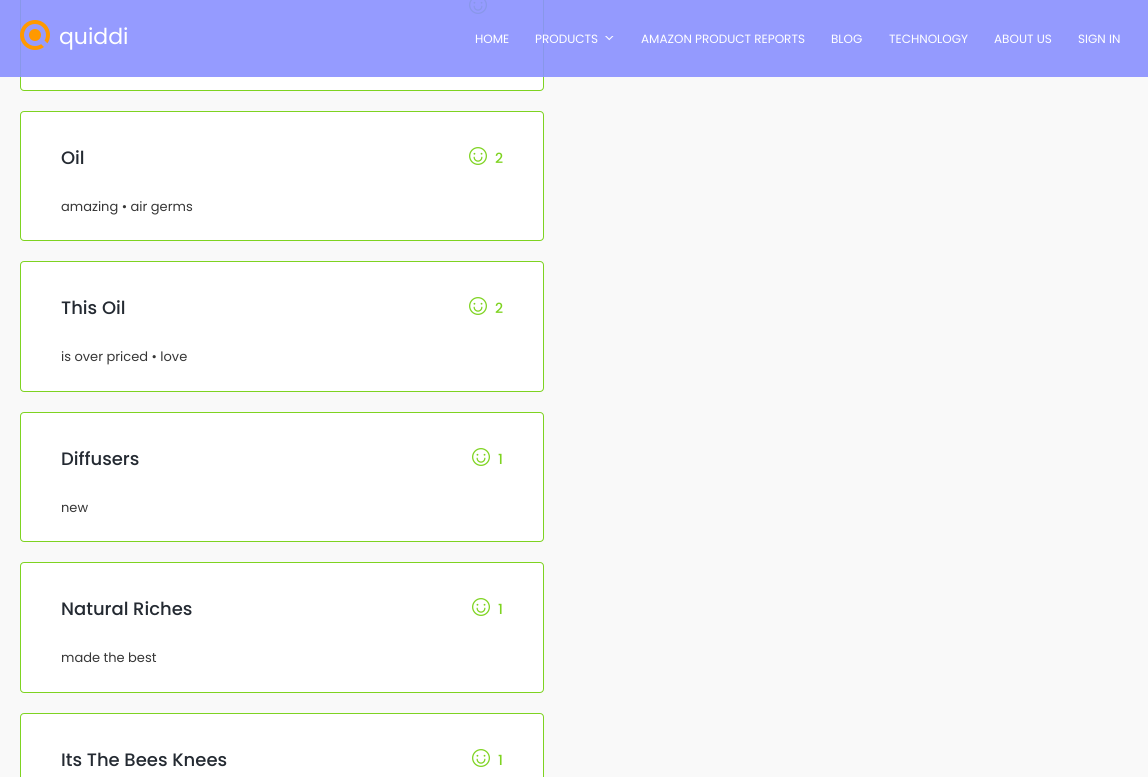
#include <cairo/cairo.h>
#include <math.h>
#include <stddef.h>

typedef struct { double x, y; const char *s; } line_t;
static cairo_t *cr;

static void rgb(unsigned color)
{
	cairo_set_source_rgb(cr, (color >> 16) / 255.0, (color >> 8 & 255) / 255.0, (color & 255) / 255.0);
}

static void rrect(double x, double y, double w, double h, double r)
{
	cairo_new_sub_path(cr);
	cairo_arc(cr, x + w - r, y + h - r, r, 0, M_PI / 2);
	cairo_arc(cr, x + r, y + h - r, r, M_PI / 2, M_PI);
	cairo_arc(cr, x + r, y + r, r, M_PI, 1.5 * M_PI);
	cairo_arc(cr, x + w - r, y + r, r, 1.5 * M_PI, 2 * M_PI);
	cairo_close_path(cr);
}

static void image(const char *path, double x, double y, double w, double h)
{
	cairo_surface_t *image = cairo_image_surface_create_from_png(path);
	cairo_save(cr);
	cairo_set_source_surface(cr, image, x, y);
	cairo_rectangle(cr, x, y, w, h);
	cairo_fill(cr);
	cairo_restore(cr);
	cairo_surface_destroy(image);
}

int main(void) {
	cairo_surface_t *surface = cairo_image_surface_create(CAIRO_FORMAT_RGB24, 1148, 777);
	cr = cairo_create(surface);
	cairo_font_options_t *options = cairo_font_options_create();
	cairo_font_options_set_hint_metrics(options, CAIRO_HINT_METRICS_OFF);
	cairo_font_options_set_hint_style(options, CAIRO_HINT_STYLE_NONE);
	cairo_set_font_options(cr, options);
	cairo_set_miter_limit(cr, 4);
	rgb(0xf9f9f9);
	cairo_paint(cr);
	rgb(0xffffff);
	rrect(20.5, -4.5, 523, 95, 3.5);
	cairo_fill_preserve(cr);
	rgb(0x7ed321);
	cairo_set_line_width(cr, 1);
	cairo_stroke(cr);
	image("img/3.png", 469, 0, 18, 14);
	cairo_set_source_rgba(cr, 0.541, 0.565, 1, 0.9);
	cairo_rectangle(cr, 0, 0, 1148, 77);
	cairo_fill(cr);
	image("img/1.png", 20, 20, 30, 30);
	image("img/2.png", 605, 36, 9, 5);
	rgb(0xffffff);
	rrect(20.5, 111.5, 523, 129, 3.5);
	cairo_fill_preserve(cr);
	rgb(0x7ed321);
	cairo_stroke(cr);
	image("img/4.png", 469, 147, 18, 18);
	rgb(0xffffff);
	rrect(20.5, 261.5, 523, 130, 3.5);
	cairo_fill_preserve(cr);
	rgb(0x7ed321);
	cairo_stroke(cr);
	image("img/4.png", 469, 297, 18, 18);
	rgb(0xffffff);
	rrect(20.5, 412.5, 523, 129, 3.5);
	cairo_fill_preserve(cr);
	rgb(0x7ed321);
	cairo_stroke(cr);
	image("img/4.png", 472, 448, 18, 18);
	rgb(0xffffff);
	rrect(20.5, 562.5, 523, 130, 3.5);
	cairo_fill_preserve(cr);
	rgb(0x7ed321);
	cairo_stroke(cr);
	image("img/4.png", 472, 598, 18, 18);
	rgb(0xffffff);
	rrect(20.5, 713.5, 523, 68, 3.5);
	cairo_fill_preserve(cr);
	rgb(0x7ed321);
	cairo_stroke(cr);
	image("img/4.png", 472, 749, 18, 18);
	cairo_select_font_face(cr, "Poppins", CAIRO_FONT_SLANT_NORMAL, CAIRO_FONT_WEIGHT_NORMAL);
	cairo_set_font_size(cr, 22);
	rgb(0xffffff);
	cairo_move_to(cr, 59, 44);
	cairo_show_text(cr, "quiddi");
	cairo_set_font_size(cr, 12);
	{
		static const line_t items[] = {
			{475, 43, "HOME"},
			{535, 43, "PRODUCTS"},
			{641, 43, "AMAZON PRODUCT REPORTS"},
			{831, 43, "BLOG"},
			{889, 43, "TECHNOLOGY"},
			{994, 43, "ABOUT US"},
			{1078, 43, "SIGN IN"},
		};
		for (size_t i = 0; i < sizeof items / sizeof *items; i++) {
			cairo_move_to(cr, items[i].x, items[i].y);
			cairo_show_text(cr, items[i].s);
		}
	}
	cairo_select_font_face(cr, "Poppins Medium", CAIRO_FONT_SLANT_NORMAL, CAIRO_FONT_WEIGHT_NORMAL);
	cairo_set_font_size(cr, 18);
	rgb(0x242a32);
	cairo_move_to(cr, 61, 164);
	cairo_show_text(cr, "Oil");
	cairo_set_font_size(cr, 14);
	rgb(0x7ed321);
	cairo_move_to(cr, 495, 163);
	cairo_show_text(cr, "2");
	cairo_select_font_face(cr, "Poppins", CAIRO_FONT_SLANT_NORMAL, CAIRO_FONT_WEIGHT_NORMAL);
	cairo_set_font_size(cr, 13);
	rgb(0x363636);
	cairo_move_to(cr, 61, 211);
	cairo_show_text(cr, "amazing • air germs");
	cairo_select_font_face(cr, "Poppins Medium", CAIRO_FONT_SLANT_NORMAL, CAIRO_FONT_WEIGHT_NORMAL);
	cairo_set_font_size(cr, 18);
	rgb(0x242a32);
	cairo_move_to(cr, 61, 314);
	cairo_show_text(cr, "This Oil");
	cairo_set_font_size(cr, 14);
	rgb(0x7ed321);
	cairo_move_to(cr, 495, 313);
	cairo_show_text(cr, "2");
	cairo_select_font_face(cr, "Poppins", CAIRO_FONT_SLANT_NORMAL, CAIRO_FONT_WEIGHT_NORMAL);
	cairo_set_font_size(cr, 13);
	rgb(0x363636);
	cairo_move_to(cr, 61, 361);
	cairo_show_text(cr, "is over priced • love");
	cairo_select_font_face(cr, "Poppins Medium", CAIRO_FONT_SLANT_NORMAL, CAIRO_FONT_WEIGHT_NORMAL);
	cairo_set_font_size(cr, 18);
	rgb(0x242a32);
	cairo_move_to(cr, 61, 465);
	cairo_show_text(cr, "Diffusers");
	cairo_set_font_size(cr, 14);
	rgb(0x7ed321);
	cairo_move_to(cr, 498, 464);
	cairo_show_text(cr, "1");
	cairo_select_font_face(cr, "Poppins", CAIRO_FONT_SLANT_NORMAL, CAIRO_FONT_WEIGHT_NORMAL);
	cairo_set_font_size(cr, 13);
	rgb(0x363636);
	cairo_move_to(cr, 61, 512);
	cairo_show_text(cr, "new");
	cairo_select_font_face(cr, "Poppins Medium", CAIRO_FONT_SLANT_NORMAL, CAIRO_FONT_WEIGHT_NORMAL);
	cairo_set_font_size(cr, 18);
	rgb(0x242a32);
	cairo_move_to(cr, 61, 615);
	cairo_show_text(cr, "Natural Riches");
	cairo_set_font_size(cr, 14);
	rgb(0x7ed321);
	cairo_move_to(cr, 498, 614);
	cairo_show_text(cr, "1");
	cairo_select_font_face(cr, "Poppins", CAIRO_FONT_SLANT_NORMAL, CAIRO_FONT_WEIGHT_NORMAL);
	cairo_set_font_size(cr, 13);
	rgb(0x363636);
	cairo_move_to(cr, 61, 662);
	cairo_show_text(cr, "made the best");
	cairo_select_font_face(cr, "Poppins Medium", CAIRO_FONT_SLANT_NORMAL, CAIRO_FONT_WEIGHT_NORMAL);
	cairo_set_font_size(cr, 18);
	rgb(0x242a32);
	cairo_move_to(cr, 61, 766);
	cairo_show_text(cr, "Its The Bees Knees");
	cairo_set_font_size(cr, 14);
	rgb(0x7ed321);
	cairo_move_to(cr, 498, 765);
	cairo_show_text(cr, "1");
	cairo_surface_write_to_png(surface, "page.png");
	cairo_font_options_destroy(options);
	cairo_destroy(cr);
	cairo_surface_destroy(surface);
	return 0;
}
